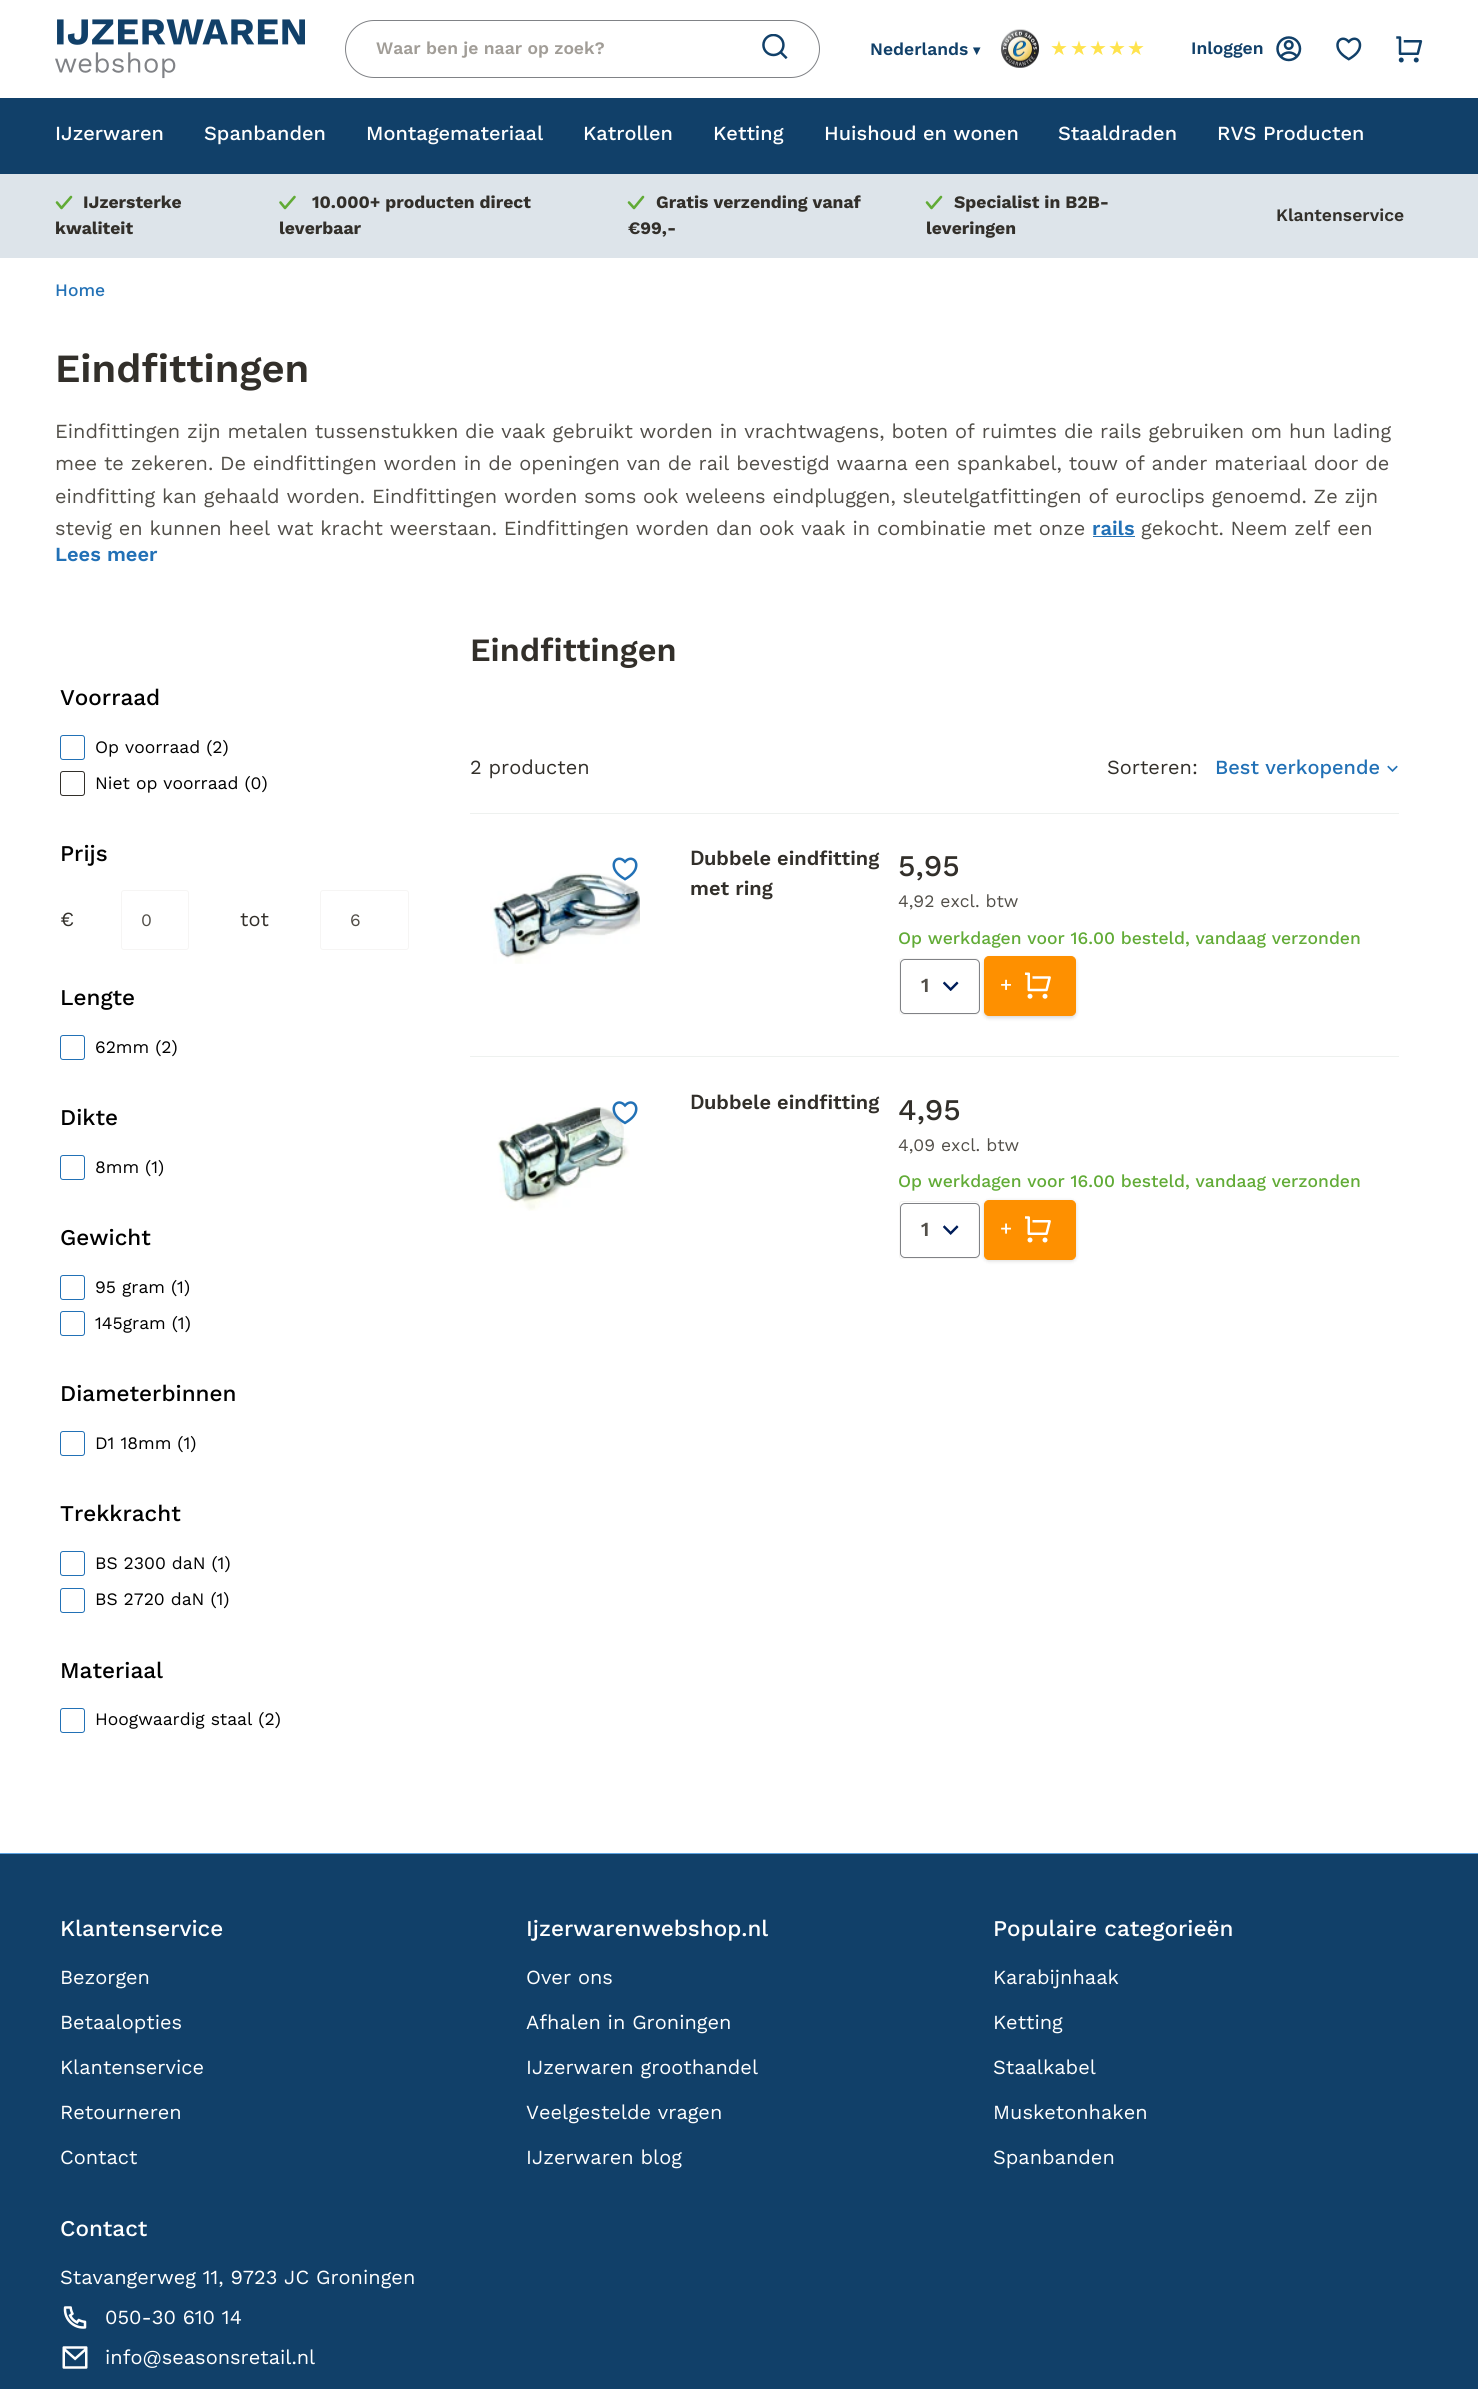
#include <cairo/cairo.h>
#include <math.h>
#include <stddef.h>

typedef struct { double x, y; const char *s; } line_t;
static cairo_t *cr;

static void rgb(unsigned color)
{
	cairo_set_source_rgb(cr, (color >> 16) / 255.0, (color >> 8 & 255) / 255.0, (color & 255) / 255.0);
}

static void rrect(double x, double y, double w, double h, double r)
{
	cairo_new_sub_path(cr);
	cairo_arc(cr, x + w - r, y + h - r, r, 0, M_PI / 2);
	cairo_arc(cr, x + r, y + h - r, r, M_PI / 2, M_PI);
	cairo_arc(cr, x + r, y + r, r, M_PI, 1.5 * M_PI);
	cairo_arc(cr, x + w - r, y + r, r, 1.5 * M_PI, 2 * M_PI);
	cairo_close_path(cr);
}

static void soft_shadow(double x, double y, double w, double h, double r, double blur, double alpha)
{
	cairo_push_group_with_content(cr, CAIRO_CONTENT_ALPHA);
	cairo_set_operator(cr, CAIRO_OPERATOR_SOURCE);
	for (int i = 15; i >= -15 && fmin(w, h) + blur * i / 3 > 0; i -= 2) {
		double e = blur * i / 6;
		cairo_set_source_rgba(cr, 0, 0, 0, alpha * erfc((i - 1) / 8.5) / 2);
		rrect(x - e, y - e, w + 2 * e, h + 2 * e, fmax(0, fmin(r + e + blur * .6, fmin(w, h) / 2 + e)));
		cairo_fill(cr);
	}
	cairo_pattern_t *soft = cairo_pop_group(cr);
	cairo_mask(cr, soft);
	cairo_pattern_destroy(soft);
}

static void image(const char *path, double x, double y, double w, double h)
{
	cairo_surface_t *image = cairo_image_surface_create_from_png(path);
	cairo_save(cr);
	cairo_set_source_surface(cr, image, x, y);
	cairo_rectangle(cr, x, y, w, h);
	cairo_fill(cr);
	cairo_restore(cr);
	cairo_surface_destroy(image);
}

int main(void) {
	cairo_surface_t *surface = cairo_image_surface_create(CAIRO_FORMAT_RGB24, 1478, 2389);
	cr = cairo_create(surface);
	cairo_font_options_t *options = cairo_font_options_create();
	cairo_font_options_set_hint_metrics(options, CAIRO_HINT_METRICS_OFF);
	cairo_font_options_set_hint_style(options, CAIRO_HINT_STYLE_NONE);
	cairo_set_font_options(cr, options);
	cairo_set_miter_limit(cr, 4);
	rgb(0xffffff);
	cairo_paint(cr);
	image("img/1.png", 55, 19, 250, 60);
	rrect(345.5, 20.5, 474, 57, 28.5);
	rgb(0x808286);
	cairo_set_line_width(cr, 1);
	cairo_stroke(cr);
	image("img/2.png", 762, 34, 26, 25);
	image("img/3.png", 1000, 29, 40, 39);
	image("img/4.png", 1276, 36, 26, 26);
	image("img/5.png", 1336, 37, 26, 24);
	image("img/6.png", 1396, 36, 27, 27);
	rgb(0x114069);
	cairo_rectangle(cr, 0, 98, 1478, 76);
	cairo_fill(cr);
	rgb(0xdde4ea);
	cairo_rectangle(cr, 0, 174, 1478, 84);
	cairo_fill(cr);
	cairo_new_path(cr);
	cairo_move_to(cr, 57, 202.5);
	cairo_line_to(cr, 61.5, 208);
	cairo_line_to(cr, 71, 197);
	rgb(0x61ab36);
	cairo_set_line_width(cr, 2.6);
	cairo_set_line_cap(cr, CAIRO_LINE_CAP_ROUND);
	cairo_set_line_join(cr, CAIRO_LINE_JOIN_ROUND);
	cairo_stroke(cr);
	cairo_new_path(cr);
	cairo_move_to(cr, 280.5, 202.5);
	cairo_line_to(cr, 285, 208);
	cairo_line_to(cr, 294.5, 197);
	cairo_stroke(cr);
	cairo_new_path(cr);
	cairo_move_to(cr, 629, 202.5);
	cairo_line_to(cr, 634, 208);
	cairo_line_to(cr, 643, 197);
	cairo_stroke(cr);
	cairo_new_path(cr);
	cairo_move_to(cr, 927, 202.5);
	cairo_line_to(cr, 931.5, 208);
	cairo_line_to(cr, 941, 197);
	cairo_stroke(cr);
	rgb(0x2271b6);
	cairo_rectangle(cr, 1093, 536, 42, 1);
	cairo_fill(cr);
	rrect(60.5, 735.5, 24, 24, 2.5);
	cairo_set_line_width(cr, 1);
	cairo_set_line_cap(cr, CAIRO_LINE_CAP_BUTT);
	cairo_set_line_join(cr, CAIRO_LINE_JOIN_MITER);
	cairo_stroke(cr);
	rrect(60.5, 771.5, 24, 24, 2.5);
	rgb(0x322f2a);
	cairo_stroke(cr);
	rrect(121.5, 890.5, 67, 59, 2.5);
	rgb(0xf6f5f4);
	cairo_stroke(cr);
	rrect(320.5, 890.5, 88, 59, 2.5);
	cairo_stroke(cr);
	rrect(60.5, 1035.5, 24, 24, 2.5);
	rgb(0x2271b6);
	cairo_stroke(cr);
	rrect(60.5, 1155.5, 24, 24, 2.5);
	cairo_stroke(cr);
	rrect(60.5, 1275.5, 24, 24, 2.5);
	cairo_stroke(cr);
	rrect(60.5, 1311.5, 24, 24, 2.5);
	cairo_stroke(cr);
	rrect(60.5, 1431.5, 24, 24, 2.5);
	cairo_stroke(cr);
	rrect(60.5, 1551.5, 24, 24, 2.5);
	cairo_stroke(cr);
	rrect(60.5, 1588.5, 24, 24, 2.5);
	cairo_stroke(cr);
	rrect(60.5, 1708.5, 24, 24, 2.5);
	cairo_stroke(cr);
	image("img/7.png", 1387, 765, 11, 7);
	rgb(0xeef1ef);
	cairo_rectangle(cr, 470, 813, 929, 1);
	cairo_fill(cr);
	image("img/11.png", 490, 873, 150, 91);
	cairo_set_source_rgba(cr, 1, 1, 1, 0.72);
	cairo_arc(cr, 625, 869, 25, 0, 2 * M_PI);
	cairo_fill(cr);
	image("img/8.png", 612, 857, 26, 24);
	rgb(0x000000);
	soft_shadow(984, 958, 92, 60, 5, 2, 0.15);
	rrect(899.5, 958.5, 79, 56, 2.5);
	rgb(0xf6f5f4);
	cairo_stroke(cr);
	image("img/9.png", 943, 981, 16, 10);
	rrect(900.5, 959.5, 79, 54, 4.5);
	rgb(0x808286);
	cairo_stroke(cr);
	rgb(0xfe9000);
	rrect(984.5, 956.5, 91, 59, 4.5);
	cairo_fill_preserve(cr);
	cairo_stroke(cr);
	image("img/10.png", 1001, 972, 50, 27);
	rgb(0xeef1ef);
	cairo_rectangle(cr, 470, 1056, 929, 1);
	cairo_fill(cr);
	image("img/15.png", 497, 1107, 133, 104);
	cairo_set_source_rgba(cr, 1, 1, 1, 0.72);
	cairo_arc(cr, 625, 1113, 25, 0, 2 * M_PI);
	cairo_fill(cr);
	image("img/12.png", 612, 1101, 26, 24);
	rgb(0x000000);
	soft_shadow(984, 1201, 92, 60, 5, 2, 0.15);
	rrect(899.5, 1201.5, 79, 57, 2.5);
	rgb(0xf6f5f4);
	cairo_stroke(cr);
	image("img/13.png", 943, 1225, 16, 10);
	rrect(900.5, 1203.5, 79, 54, 4.5);
	rgb(0x808286);
	cairo_stroke(cr);
	rgb(0xfe9000);
	rrect(984.5, 1200.5, 91, 59, 4.5);
	cairo_fill_preserve(cr);
	cairo_stroke(cr);
	image("img/14.png", 1001, 1216, 50, 27);
	rgb(0x114069);
	cairo_rectangle(cr, 0, 1854, 1478, 535);
	cairo_fill(cr);
	rgb(0x5da3e1);
	cairo_rectangle(cr, 0, 1853, 1478, 1);
	cairo_fill(cr);
	image("img/16.png", 63, 2306, 24, 23);
	image("img/17.png", 62, 2346, 26, 23);
	cairo_select_font_face(cr, "Work Sans SemiBold", CAIRO_FONT_SLANT_NORMAL, CAIRO_FONT_WEIGHT_NORMAL);
	cairo_set_font_size(cr, 17.5);
	rgb(0xa19d97);
	cairo_move_to(cr, 376, 54);
	cairo_show_text(cr, "Waar ben je naar op zoek?");
	rgb(0x114069);
	cairo_move_to(cr, 870, 55);
	cairo_show_text(cr, "Nederlands");
	cairo_select_font_face(cr, "DejaVu Sans", CAIRO_FONT_SLANT_NORMAL, CAIRO_FONT_WEIGHT_BOLD);
	cairo_set_font_size(cr, 14);
	cairo_move_to(cr, 973, 55);
	cairo_show_text(cr, "▾");
	cairo_select_font_face(cr, "DejaVu Sans", CAIRO_FONT_SLANT_NORMAL, CAIRO_FONT_WEIGHT_NORMAL);
	cairo_set_font_size(cr, 20);
	rgb(0xffe34d);
	{
		static const line_t items[] = {
			{1050, 55, "★"},
			{1070, 55, "★"},
			{1089, 55, "★"},
			{1108, 55, "★"},
			{1127, 55, "★"},
		};
		for (size_t i = 0; i < sizeof items / sizeof *items; i++) {
			cairo_move_to(cr, items[i].x, items[i].y);
			cairo_show_text(cr, items[i].s);
		}
	}
	cairo_select_font_face(cr, "Work Sans SemiBold", CAIRO_FONT_SLANT_NORMAL, CAIRO_FONT_WEIGHT_NORMAL);
	cairo_set_font_size(cr, 17.5);
	rgb(0x114069);
	cairo_move_to(cr, 1191, 54);
	cairo_show_text(cr, "Inloggen");
	cairo_select_font_face(cr, "Work Sans Medium", CAIRO_FONT_SLANT_NORMAL, CAIRO_FONT_WEIGHT_NORMAL);
	cairo_set_font_size(cr, 20);
	rgb(0xffffff);
	{
		static const line_t items[] = {
			{55, 140, "IJzerwaren"},
			{204, 140, "Spanbanden"},
			{366, 140, "Montagemateriaal"},
			{583, 140, "Katrollen"},
			{713, 140, "Ketting"},
			{824, 140, "Huishoud en wonen"},
			{1058, 140, "Staaldraden"},
			{1217, 140, "RVS Producten"},
		};
		for (size_t i = 0; i < sizeof items / sizeof *items; i++) {
			cairo_move_to(cr, items[i].x, items[i].y);
			cairo_show_text(cr, items[i].s);
		}
	}
	cairo_select_font_face(cr, "Work Sans", CAIRO_FONT_SLANT_NORMAL, CAIRO_FONT_WEIGHT_BOLD);
	cairo_set_font_size(cr, 17.5);
	rgb(0x322f2a);
	{
		static const line_t items[] = {
			{83, 208, "IJzersterke"},
			{55, 234, "kwaliteit"},
			{312, 208, "10.000+ producten direct"},
			{279, 234, "leverbaar"},
			{656, 208, "Gratis verzending vanaf"},
			{628, 234, "€99,-"},
			{954, 208, "Specialist in B2B-"},
			{926, 234, "leveringen"},
		};
		for (size_t i = 0; i < sizeof items / sizeof *items; i++) {
			cairo_move_to(cr, items[i].x, items[i].y);
			cairo_show_text(cr, items[i].s);
		}
	}
	cairo_select_font_face(cr, "Work Sans SemiBold", CAIRO_FONT_SLANT_NORMAL, CAIRO_FONT_WEIGHT_NORMAL);
	cairo_move_to(cr, 1276, 221);
	cairo_show_text(cr, "Klantenservice");
	cairo_select_font_face(cr, "Work Sans Medium", CAIRO_FONT_SLANT_NORMAL, CAIRO_FONT_WEIGHT_NORMAL);
	rgb(0x2271b6);
	cairo_move_to(cr, 55, 296);
	cairo_show_text(cr, "Home");
	cairo_select_font_face(cr, "Work Sans SemiBold", CAIRO_FONT_SLANT_NORMAL, CAIRO_FONT_WEIGHT_NORMAL);
	cairo_set_font_size(cr, 40);
	rgb(0x322f2a);
	cairo_move_to(cr, 55, 382);
	cairo_show_text(cr, "Eindfittingen");
	cairo_select_font_face(cr, "Work Sans", CAIRO_FONT_SLANT_NORMAL, CAIRO_FONT_WEIGHT_NORMAL);
	cairo_set_font_size(cr, 20);
	rgb(0x524f49);
	{
		static const line_t items[] = {
			{55, 438, "Eindfittingen zijn metalen tussenstukken die vaak gebruikt worden in vrachtwagens, boten of ruimtes die rails gebruiken om hun lading"},
			{55, 470, "mee te zekeren. De eindfittingen worden in de openingen van de rail bevestigd waarna een spankabel, touw of ander materiaal door de"},
			{55, 503, "eindfitting kan gehaald worden. Eindfittingen worden soms ook weleens eindpluggen, sleutelgatfittingen of euroclips genoemd. Ze zijn"},
			{55, 535, "stevig en kunnen heel wat kracht weerstaan. Eindfittingen worden dan ook vaak in combinatie met onze"},
		};
		for (size_t i = 0; i < sizeof items / sizeof *items; i++) {
			cairo_move_to(cr, items[i].x, items[i].y);
			cairo_show_text(cr, items[i].s);
		}
	}
	cairo_select_font_face(cr, "Work Sans SemiBold", CAIRO_FONT_SLANT_NORMAL, CAIRO_FONT_WEIGHT_NORMAL);
	rgb(0x2271b6);
	cairo_move_to(cr, 1092, 535);
	cairo_show_text(cr, "rails");
	cairo_select_font_face(cr, "Work Sans", CAIRO_FONT_SLANT_NORMAL, CAIRO_FONT_WEIGHT_NORMAL);
	rgb(0x524f49);
	cairo_move_to(cr, 1141, 535);
	cairo_show_text(cr, "gekocht. Neem zelf een");
	cairo_select_font_face(cr, "Work Sans SemiBold", CAIRO_FONT_SLANT_NORMAL, CAIRO_FONT_WEIGHT_NORMAL);
	rgb(0x2271b6);
	cairo_move_to(cr, 55, 561);
	cairo_show_text(cr, "Lees meer");
	cairo_select_font_face(cr, "Work Sans Medium", CAIRO_FONT_SLANT_NORMAL, CAIRO_FONT_WEIGHT_NORMAL);
	cairo_set_font_size(cr, 22.5);
	rgb(0x000000);
	cairo_move_to(cr, 60, 705);
	cairo_show_text(cr, "Voorraad");
	cairo_select_font_face(cr, "Work Sans", CAIRO_FONT_SLANT_NORMAL, CAIRO_FONT_WEIGHT_NORMAL);
	cairo_set_font_size(cr, 17.5);
	cairo_move_to(cr, 95, 753);
	cairo_show_text(cr, "Op voorraad (2)");
	cairo_move_to(cr, 95, 789);
	cairo_show_text(cr, "Niet op voorraad (0)");
	cairo_select_font_face(cr, "Work Sans Medium", CAIRO_FONT_SLANT_NORMAL, CAIRO_FONT_WEIGHT_NORMAL);
	cairo_set_font_size(cr, 22.5);
	cairo_move_to(cr, 60, 861);
	cairo_show_text(cr, "Prijs");
	cairo_select_font_face(cr, "Work Sans", CAIRO_FONT_SLANT_NORMAL, CAIRO_FONT_WEIGHT_NORMAL);
	cairo_set_font_size(cr, 20);
	rgb(0x322f2a);
	cairo_move_to(cr, 60, 926);
	cairo_show_text(cr, "€");
	cairo_set_font_size(cr, 17.5);
	rgb(0x524f49);
	cairo_move_to(cr, 141, 926);
	cairo_show_text(cr, "0");
	cairo_set_font_size(cr, 20);
	rgb(0x322f2a);
	cairo_move_to(cr, 240, 926);
	cairo_show_text(cr, "tot");
	cairo_set_font_size(cr, 17.5);
	rgb(0x524f49);
	cairo_move_to(cr, 350, 926);
	cairo_show_text(cr, "6");
	cairo_select_font_face(cr, "Work Sans Medium", CAIRO_FONT_SLANT_NORMAL, CAIRO_FONT_WEIGHT_NORMAL);
	cairo_set_font_size(cr, 22.5);
	rgb(0x000000);
	cairo_move_to(cr, 60, 1005);
	cairo_show_text(cr, "Lengte");
	cairo_select_font_face(cr, "Work Sans", CAIRO_FONT_SLANT_NORMAL, CAIRO_FONT_WEIGHT_NORMAL);
	cairo_set_font_size(cr, 17.5);
	cairo_move_to(cr, 95, 1053);
	cairo_show_text(cr, "62mm (2)");
	cairo_select_font_face(cr, "Work Sans Medium", CAIRO_FONT_SLANT_NORMAL, CAIRO_FONT_WEIGHT_NORMAL);
	cairo_set_font_size(cr, 22.5);
	cairo_move_to(cr, 60, 1125);
	cairo_show_text(cr, "Dikte");
	cairo_select_font_face(cr, "Work Sans", CAIRO_FONT_SLANT_NORMAL, CAIRO_FONT_WEIGHT_NORMAL);
	cairo_set_font_size(cr, 17.5);
	cairo_move_to(cr, 95, 1173);
	cairo_show_text(cr, "8mm (1)");
	cairo_select_font_face(cr, "Work Sans Medium", CAIRO_FONT_SLANT_NORMAL, CAIRO_FONT_WEIGHT_NORMAL);
	cairo_set_font_size(cr, 22.5);
	cairo_move_to(cr, 60, 1245);
	cairo_show_text(cr, "Gewicht");
	cairo_select_font_face(cr, "Work Sans", CAIRO_FONT_SLANT_NORMAL, CAIRO_FONT_WEIGHT_NORMAL);
	cairo_set_font_size(cr, 17.5);
	cairo_move_to(cr, 95, 1293);
	cairo_show_text(cr, "95 gram (1)");
	cairo_move_to(cr, 95, 1329);
	cairo_show_text(cr, "145gram (1)");
	cairo_select_font_face(cr, "Work Sans Medium", CAIRO_FONT_SLANT_NORMAL, CAIRO_FONT_WEIGHT_NORMAL);
	cairo_set_font_size(cr, 22.5);
	cairo_move_to(cr, 60, 1401);
	cairo_show_text(cr, "Diameterbinnen");
	cairo_select_font_face(cr, "Work Sans", CAIRO_FONT_SLANT_NORMAL, CAIRO_FONT_WEIGHT_NORMAL);
	cairo_set_font_size(cr, 17.5);
	cairo_move_to(cr, 95, 1449);
	cairo_show_text(cr, "D1 18mm (1)");
	cairo_select_font_face(cr, "Work Sans Medium", CAIRO_FONT_SLANT_NORMAL, CAIRO_FONT_WEIGHT_NORMAL);
	cairo_set_font_size(cr, 22.5);
	cairo_move_to(cr, 60, 1521);
	cairo_show_text(cr, "Trekkracht");
	cairo_select_font_face(cr, "Work Sans", CAIRO_FONT_SLANT_NORMAL, CAIRO_FONT_WEIGHT_NORMAL);
	cairo_set_font_size(cr, 17.5);
	cairo_move_to(cr, 95, 1569);
	cairo_show_text(cr, "BS 2300 daN (1)");
	cairo_move_to(cr, 95, 1605);
	cairo_show_text(cr, "BS 2720 daN (1)");
	cairo_select_font_face(cr, "Work Sans Medium", CAIRO_FONT_SLANT_NORMAL, CAIRO_FONT_WEIGHT_NORMAL);
	cairo_set_font_size(cr, 22.5);
	cairo_move_to(cr, 60, 1678);
	cairo_show_text(cr, "Materiaal");
	cairo_select_font_face(cr, "Work Sans", CAIRO_FONT_SLANT_NORMAL, CAIRO_FONT_WEIGHT_NORMAL);
	cairo_set_font_size(cr, 17.5);
	cairo_move_to(cr, 95, 1725);
	cairo_show_text(cr, "Hoogwaardig staal (2)");
	cairo_select_font_face(cr, "Work Sans SemiBold", CAIRO_FONT_SLANT_NORMAL, CAIRO_FONT_WEIGHT_NORMAL);
	cairo_set_font_size(cr, 32.5);
	rgb(0x322f2a);
	cairo_move_to(cr, 470, 661);
	cairo_show_text(cr, "Eindfittingen");
	cairo_select_font_face(cr, "Work Sans", CAIRO_FONT_SLANT_NORMAL, CAIRO_FONT_WEIGHT_NORMAL);
	cairo_set_font_size(cr, 20);
	cairo_move_to(cr, 470, 774);
	cairo_show_text(cr, "2 producten");
	cairo_move_to(cr, 1107, 774);
	cairo_show_text(cr, "Sorteren:");
	cairo_select_font_face(cr, "Work Sans Medium", CAIRO_FONT_SLANT_NORMAL, CAIRO_FONT_WEIGHT_NORMAL);
	rgb(0x2271b6);
	cairo_move_to(cr, 1215, 774);
	cairo_show_text(cr, "Best verkopende");
	cairo_select_font_face(cr, "Noto Sans SemiBold", CAIRO_FONT_SLANT_NORMAL, CAIRO_FONT_WEIGHT_NORMAL);
	rgb(0x322f2a);
	cairo_move_to(cr, 690, 865);
	cairo_show_text(cr, "D");
	cairo_select_font_face(cr, "Work Sans SemiBold", CAIRO_FONT_SLANT_NORMAL, CAIRO_FONT_WEIGHT_NORMAL);
	cairo_move_to(cr, 704, 865);
	cairo_show_text(cr, "ubbele eindfitting");
	cairo_move_to(cr, 690, 895);
	cairo_show_text(cr, "met ring");
	cairo_select_font_face(cr, "Work Sans Medium", CAIRO_FONT_SLANT_NORMAL, CAIRO_FONT_WEIGHT_NORMAL);
	cairo_set_font_size(cr, 30);
	cairo_move_to(cr, 898, 876);
	cairo_show_text(cr, "5,95");
	cairo_select_font_face(cr, "Work Sans", CAIRO_FONT_SLANT_NORMAL, CAIRO_FONT_WEIGHT_NORMAL);
	cairo_set_font_size(cr, 17.5);
	rgb(0x524f49);
	cairo_move_to(cr, 898, 907);
	cairo_show_text(cr, "4,92 excl. btw");
	cairo_select_font_face(cr, "Work Sans Medium", CAIRO_FONT_SLANT_NORMAL, CAIRO_FONT_WEIGHT_NORMAL);
	rgb(0x61ab36);
	cairo_move_to(cr, 898, 944);
	cairo_show_text(cr, "Op werkdagen voor 16.00 besteld, vandaag verzonden");
	cairo_select_font_face(cr, "Work Sans SemiBold", CAIRO_FONT_SLANT_NORMAL, CAIRO_FONT_WEIGHT_NORMAL);
	cairo_set_font_size(cr, 20);
	rgb(0x524f49);
	cairo_move_to(cr, 921, 992);
	cairo_show_text(cr, "1");
	cairo_select_font_face(cr, "Noto Sans SemiBold", CAIRO_FONT_SLANT_NORMAL, CAIRO_FONT_WEIGHT_NORMAL);
	rgb(0x322f2a);
	cairo_move_to(cr, 690, 1109);
	cairo_show_text(cr, "D");
	cairo_select_font_face(cr, "Work Sans SemiBold", CAIRO_FONT_SLANT_NORMAL, CAIRO_FONT_WEIGHT_NORMAL);
	cairo_move_to(cr, 704, 1109);
	cairo_show_text(cr, "ubbele eindfitting");
	cairo_select_font_face(cr, "Work Sans Medium", CAIRO_FONT_SLANT_NORMAL, CAIRO_FONT_WEIGHT_NORMAL);
	cairo_set_font_size(cr, 30);
	cairo_move_to(cr, 898, 1120);
	cairo_show_text(cr, "4,95");
	cairo_select_font_face(cr, "Work Sans", CAIRO_FONT_SLANT_NORMAL, CAIRO_FONT_WEIGHT_NORMAL);
	cairo_set_font_size(cr, 17.5);
	rgb(0x524f49);
	cairo_move_to(cr, 898, 1151);
	cairo_show_text(cr, "4,09 excl. btw");
	cairo_select_font_face(cr, "Work Sans Medium", CAIRO_FONT_SLANT_NORMAL, CAIRO_FONT_WEIGHT_NORMAL);
	rgb(0x61ab36);
	cairo_move_to(cr, 898, 1187);
	cairo_show_text(cr, "Op werkdagen voor 16.00 besteld, vandaag verzonden");
	cairo_select_font_face(cr, "Work Sans SemiBold", CAIRO_FONT_SLANT_NORMAL, CAIRO_FONT_WEIGHT_NORMAL);
	cairo_set_font_size(cr, 20);
	rgb(0x524f49);
	cairo_move_to(cr, 921, 1236);
	cairo_show_text(cr, "1");
	cairo_select_font_face(cr, "Work Sans Medium", CAIRO_FONT_SLANT_NORMAL, CAIRO_FONT_WEIGHT_NORMAL);
	cairo_set_font_size(cr, 22.5);
	rgb(0xffffff);
	cairo_move_to(cr, 60, 1936);
	cairo_show_text(cr, "Klantenservice");
	cairo_select_font_face(cr, "Work Sans", CAIRO_FONT_SLANT_NORMAL, CAIRO_FONT_WEIGHT_NORMAL);
	cairo_set_font_size(cr, 20);
	{
		static const line_t items[] = {
			{60, 1984, "Bezorgen"},
			{60, 2029, "Betaalopties"},
			{60, 2074, "Klantenservice"},
			{60, 2119, "Retourneren"},
			{60, 2164, "Contact"},
		};
		for (size_t i = 0; i < sizeof items / sizeof *items; i++) {
			cairo_move_to(cr, items[i].x, items[i].y);
			cairo_show_text(cr, items[i].s);
		}
	}
	cairo_select_font_face(cr, "Work Sans Medium", CAIRO_FONT_SLANT_NORMAL, CAIRO_FONT_WEIGHT_NORMAL);
	cairo_set_font_size(cr, 22.5);
	cairo_move_to(cr, 526, 1936);
	cairo_show_text(cr, "Ijzerwarenwebshop.nl");
	cairo_select_font_face(cr, "Work Sans", CAIRO_FONT_SLANT_NORMAL, CAIRO_FONT_WEIGHT_NORMAL);
	cairo_set_font_size(cr, 20);
	{
		static const line_t items[] = {
			{526, 1984, "Over ons"},
			{526, 2029, "Afhalen in Groningen"},
			{526, 2074, "IJzerwaren groothandel"},
			{526, 2119, "Veelgestelde vragen"},
			{526, 2164, "IJzerwaren blog"},
		};
		for (size_t i = 0; i < sizeof items / sizeof *items; i++) {
			cairo_move_to(cr, items[i].x, items[i].y);
			cairo_show_text(cr, items[i].s);
		}
	}
	cairo_select_font_face(cr, "Work Sans Medium", CAIRO_FONT_SLANT_NORMAL, CAIRO_FONT_WEIGHT_NORMAL);
	cairo_set_font_size(cr, 22.5);
	cairo_move_to(cr, 993, 1936);
	cairo_show_text(cr, "Populaire categorieën");
	cairo_select_font_face(cr, "Work Sans", CAIRO_FONT_SLANT_NORMAL, CAIRO_FONT_WEIGHT_NORMAL);
	cairo_set_font_size(cr, 20);
	{
		static const line_t items[] = {
			{993, 1984, "Karabijnhaak"},
			{993, 2029, "Ketting"},
			{993, 2074, "Staalkabel"},
			{993, 2119, "Musketonhaken"},
			{993, 2164, "Spanbanden"},
		};
		for (size_t i = 0; i < sizeof items / sizeof *items; i++) {
			cairo_move_to(cr, items[i].x, items[i].y);
			cairo_show_text(cr, items[i].s);
		}
	}
	cairo_select_font_face(cr, "Work Sans Medium", CAIRO_FONT_SLANT_NORMAL, CAIRO_FONT_WEIGHT_NORMAL);
	cairo_set_font_size(cr, 22.5);
	cairo_move_to(cr, 60, 2236);
	cairo_show_text(cr, "Contact");
	cairo_select_font_face(cr, "Work Sans", CAIRO_FONT_SLANT_NORMAL, CAIRO_FONT_WEIGHT_NORMAL);
	cairo_set_font_size(cr, 20);
	{
		static const line_t items[] = {
			{60, 2284, "Stavangerweg 11, 9723 JC Groningen"},
			{105, 2324, "050-30 610 14"},
			{105, 2364, "info@seasonsretail.nl"},
		};
		for (size_t i = 0; i < sizeof items / sizeof *items; i++) {
			cairo_move_to(cr, items[i].x, items[i].y);
			cairo_show_text(cr, items[i].s);
		}
	}
	cairo_surface_write_to_png(surface, "page.png");
	cairo_font_options_destroy(options);
	cairo_destroy(cr);
	cairo_surface_destroy(surface);
	return 0;
}
